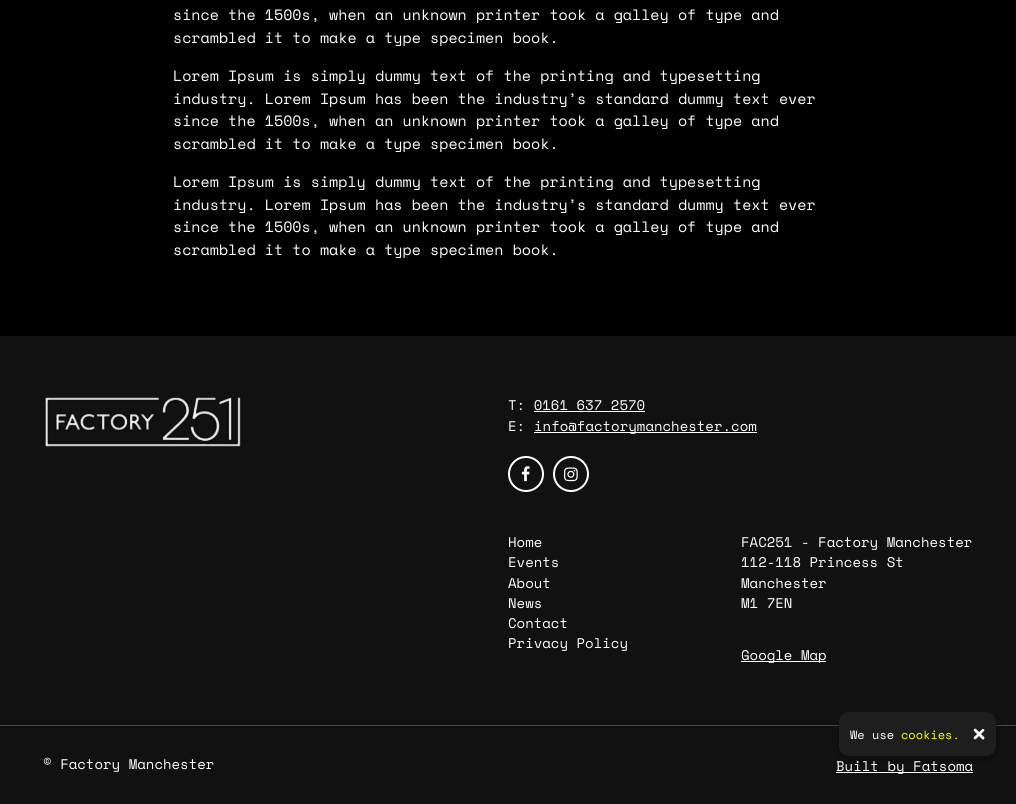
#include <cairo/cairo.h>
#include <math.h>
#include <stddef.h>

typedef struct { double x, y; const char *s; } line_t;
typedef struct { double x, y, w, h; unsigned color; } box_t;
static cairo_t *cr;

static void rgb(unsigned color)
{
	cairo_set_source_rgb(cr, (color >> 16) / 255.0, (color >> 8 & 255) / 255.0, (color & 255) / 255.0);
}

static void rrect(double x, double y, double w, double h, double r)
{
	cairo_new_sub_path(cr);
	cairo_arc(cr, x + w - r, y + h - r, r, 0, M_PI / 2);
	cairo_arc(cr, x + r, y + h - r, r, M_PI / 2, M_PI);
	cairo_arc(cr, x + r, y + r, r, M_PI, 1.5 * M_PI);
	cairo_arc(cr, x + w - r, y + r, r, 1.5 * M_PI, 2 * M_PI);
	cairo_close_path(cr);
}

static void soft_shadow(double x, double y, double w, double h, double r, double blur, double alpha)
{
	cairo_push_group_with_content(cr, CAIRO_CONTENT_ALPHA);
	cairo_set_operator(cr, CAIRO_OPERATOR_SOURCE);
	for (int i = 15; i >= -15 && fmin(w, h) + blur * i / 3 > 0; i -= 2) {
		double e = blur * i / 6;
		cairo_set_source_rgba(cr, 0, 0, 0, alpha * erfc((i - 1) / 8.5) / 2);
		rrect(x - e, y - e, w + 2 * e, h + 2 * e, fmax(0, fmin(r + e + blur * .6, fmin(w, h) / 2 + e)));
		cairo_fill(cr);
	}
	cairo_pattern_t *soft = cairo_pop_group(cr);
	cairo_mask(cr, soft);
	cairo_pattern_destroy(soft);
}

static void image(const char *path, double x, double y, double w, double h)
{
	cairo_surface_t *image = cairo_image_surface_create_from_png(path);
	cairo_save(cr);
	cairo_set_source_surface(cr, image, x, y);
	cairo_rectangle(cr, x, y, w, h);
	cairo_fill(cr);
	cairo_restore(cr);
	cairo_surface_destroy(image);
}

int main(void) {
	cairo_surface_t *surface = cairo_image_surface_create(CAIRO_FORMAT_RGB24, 1016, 804);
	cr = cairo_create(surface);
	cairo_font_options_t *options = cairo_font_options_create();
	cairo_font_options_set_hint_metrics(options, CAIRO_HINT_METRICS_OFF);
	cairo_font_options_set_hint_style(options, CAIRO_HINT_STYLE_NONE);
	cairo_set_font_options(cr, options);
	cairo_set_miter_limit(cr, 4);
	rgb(0x000000);
	cairo_paint(cr);
	rgb(0x111111);
	cairo_rectangle(cr, 0, 336, 1016, 468);
	cairo_fill(cr);
	image("img/1.png", 44, 397, 197, 50);
	rgb(0xffffff);
	cairo_rectangle(cr, 534, 411, 111, 1);
	cairo_fill(cr);
	cairo_rectangle(cr, 534, 432, 223, 1);
	cairo_fill(cr);
	cairo_arc(cr, 526, 474, 17, 0, 2 * M_PI);
	cairo_stroke(cr);
	image("img/2.png", 521, 466, 9, 16);
	cairo_arc(cr, 571, 474, 17, 0, 2 * M_PI);
	cairo_stroke(cr);
	image("img/3.png", 564, 467, 14, 15);
	{
		static const box_t items[] = {
			{741, 661, 85, 1, 0xffffff},
			{0, 725, 1016, 1, 0x494949},
			{836, 772, 137, 1, 0xffffff},
		};
		for (size_t i = 0; i < sizeof items / sizeof *items; i++) {
			rgb(items[i].color);
			cairo_rectangle(cr, items[i].x, items[i].y, items[i].w, items[i].h);
			cairo_fill(cr);
		}
	}
	rgb(0x000000);
	soft_shadow(839, 715, 157, 44, 10, 4.5, 0.4);
	rgb(0x1e1e1e);
	rrect(839, 712, 157, 44, 10);
	cairo_fill(cr);
	rgb(0xffffff);
	cairo_new_path(cr);
	cairo_move_to(cr, 976, 729);
	cairo_line_to(cr, 984.5, 737.5);
	cairo_line_to(cr, 984, 739);
	cairo_curve_to(cr, 983, 740.5, 981.5, 738.5, 980.5, 737.5);
	cairo_line_to(cr, 974, 731);
	cairo_curve_to(cr, 973, 729.5, 975, 728, 976, 729);
	cairo_close_path(cr);
	cairo_fill(cr);
	cairo_new_path(cr);
	cairo_move_to(cr, 974, 737);
	cairo_line_to(cr, 982.5, 729);
	cairo_line_to(cr, 983.5, 729);
	cairo_curve_to(cr, 985.5, 730, 983.5, 731.5, 982.5, 732.5);
	cairo_line_to(cr, 976, 739);
	cairo_curve_to(cr, 974.5, 740, 973, 738, 974, 737);
	cairo_close_path(cr);
	cairo_fill(cr);
	cairo_select_font_face(cr, "Space Mono", CAIRO_FONT_SLANT_NORMAL, CAIRO_FONT_WEIGHT_NORMAL);
	cairo_set_font_size(cr, 15);
	{
		static const line_t items[] = {
			{173, 20, "since the 1500s, when an unknown printer took a galley of type and"},
			{173, 43, "scrambled it to make a type specimen book."},
			{173, 81, "Lorem Ipsum is simply dummy text of the printing and typesetting"},
			{173, 104, "industry. Lorem Ipsum has been the industry’s standard dummy text ever"},
			{173, 126, "since the 1500s, when an unknown printer took a galley of type and"},
			{173, 149, "scrambled it to make a type specimen book."},
			{173, 187, "Lorem Ipsum is simply dummy text of the printing and typesetting"},
			{173, 210, "industry. Lorem Ipsum has been the industry’s standard dummy text ever"},
			{173, 232, "since the 1500s, when an unknown printer took a galley of type and"},
			{173, 255, "scrambled it to make a type specimen book."},
		};
		for (size_t i = 0; i < sizeof items / sizeof *items; i++) {
			cairo_move_to(cr, items[i].x, items[i].y);
			cairo_show_text(cr, items[i].s);
		}
	}
	cairo_set_font_size(cr, 14);
	{
		static const line_t items[] = {
			{508, 410, "T: 0161 637 2570"},
			{508, 431, "E:"},
			{534, 431, "info@factorymanchester.com"},
			{508, 547, "Home"},
			{508, 567, "Events"},
			{508, 588, "About"},
			{508, 608, "News"},
			{508, 628, "Contact"},
			{508, 648, "Privacy Policy"},
			{741, 547, "FAC251 - Factory Manchester"},
			{741, 567, "112-118 Princess St"},
			{741, 588, "Manchester"},
			{741, 608, "M1 7EN"},
			{741, 660, "Google Map"},
			{43, 769, "© Factory Manchester"},
			{836, 771, "Built by Fatsoma"},
		};
		for (size_t i = 0; i < sizeof items / sizeof *items; i++) {
			cairo_move_to(cr, items[i].x, items[i].y);
			cairo_show_text(cr, items[i].s);
		}
	}
	cairo_set_font_size(cr, 12);
	cairo_move_to(cr, 850, 739);
	cairo_show_text(cr, "We use");
	rgb(0xffff00);
	cairo_move_to(cr, 901, 739);
	cairo_show_text(cr, "cookies.");
	cairo_surface_write_to_png(surface, "page.png");
	cairo_font_options_destroy(options);
	cairo_destroy(cr);
	cairo_surface_destroy(surface);
	return 0;
}
